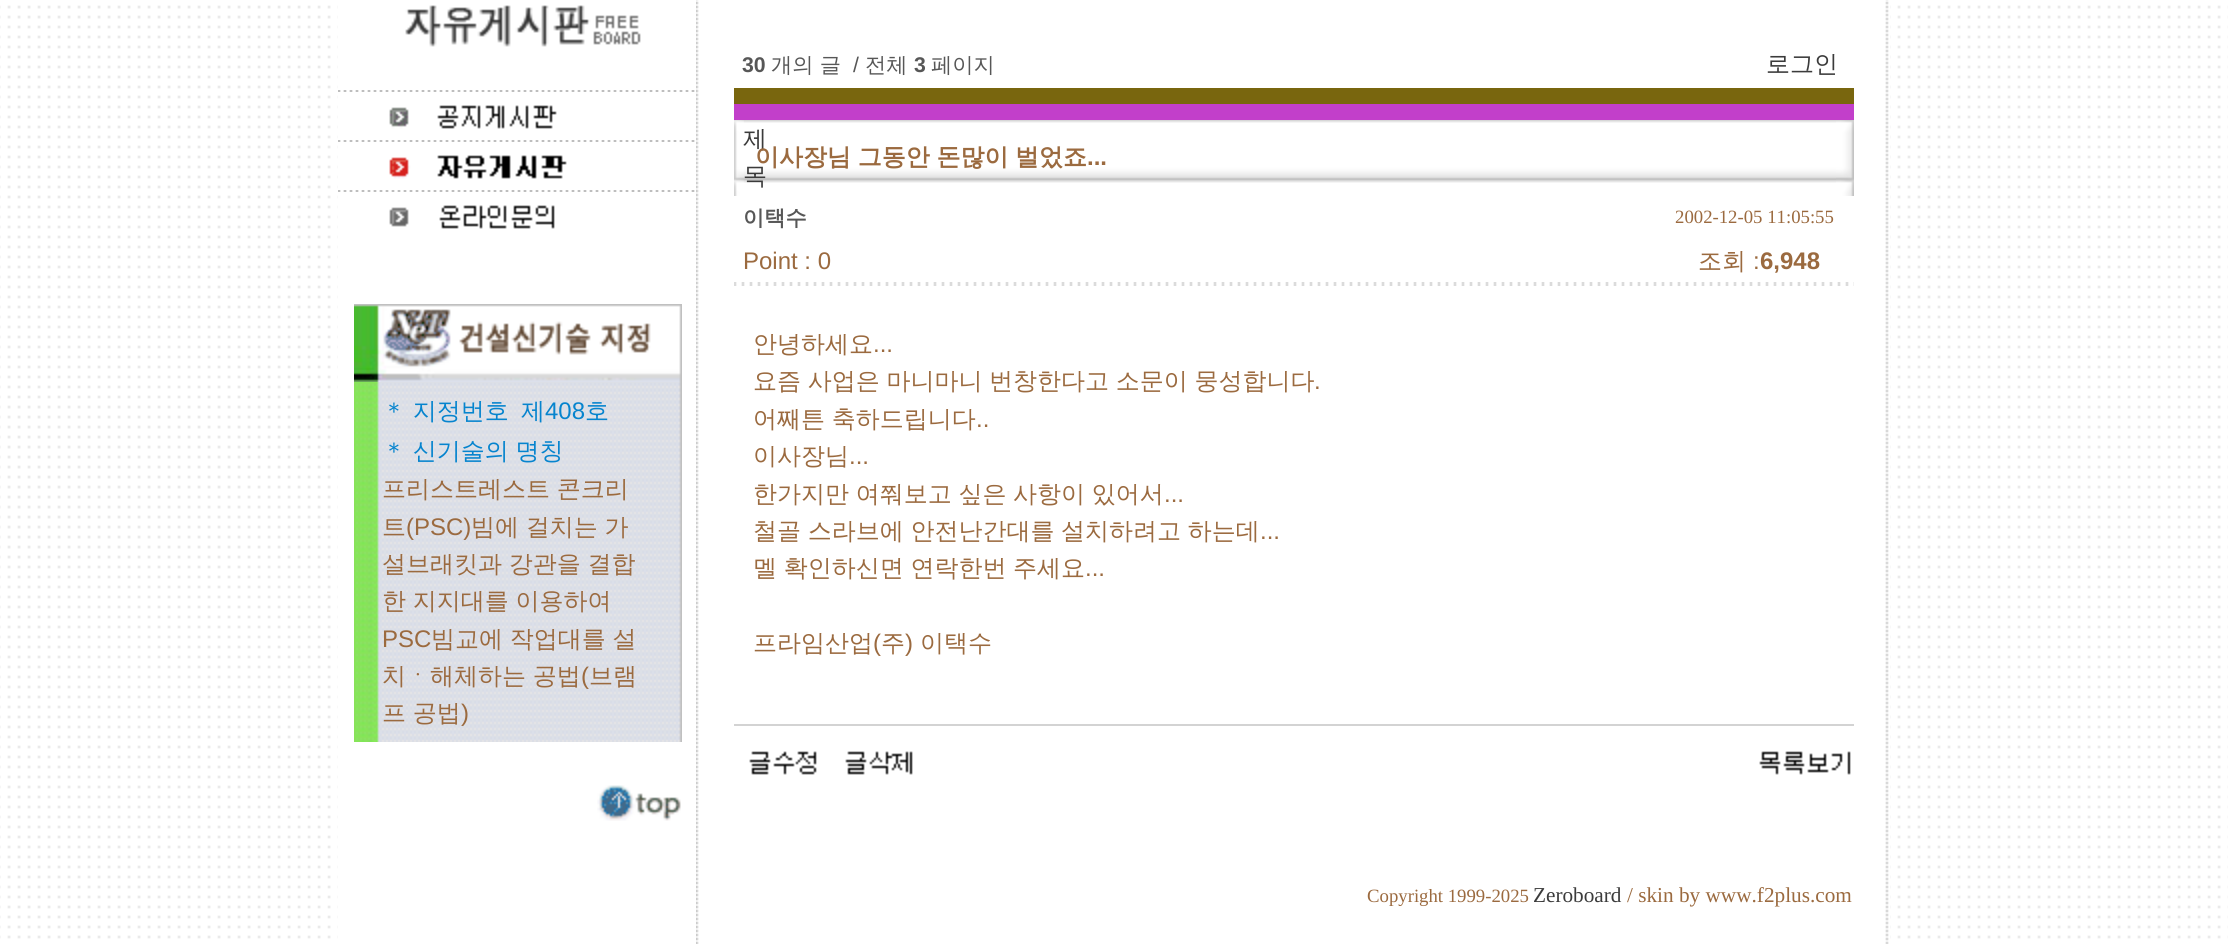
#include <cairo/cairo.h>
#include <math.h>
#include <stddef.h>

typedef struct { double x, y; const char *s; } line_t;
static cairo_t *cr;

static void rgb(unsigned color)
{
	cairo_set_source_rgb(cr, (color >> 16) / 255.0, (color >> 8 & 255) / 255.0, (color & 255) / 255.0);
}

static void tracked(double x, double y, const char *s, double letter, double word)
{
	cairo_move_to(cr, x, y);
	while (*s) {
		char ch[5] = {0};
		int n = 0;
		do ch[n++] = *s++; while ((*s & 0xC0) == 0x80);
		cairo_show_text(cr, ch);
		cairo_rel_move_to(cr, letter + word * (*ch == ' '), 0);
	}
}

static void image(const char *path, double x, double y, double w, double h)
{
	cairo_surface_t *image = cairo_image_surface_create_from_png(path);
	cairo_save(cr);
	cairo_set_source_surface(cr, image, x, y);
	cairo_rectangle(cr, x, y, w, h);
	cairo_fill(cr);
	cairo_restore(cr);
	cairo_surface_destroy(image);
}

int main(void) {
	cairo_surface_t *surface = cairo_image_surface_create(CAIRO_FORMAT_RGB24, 2228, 944);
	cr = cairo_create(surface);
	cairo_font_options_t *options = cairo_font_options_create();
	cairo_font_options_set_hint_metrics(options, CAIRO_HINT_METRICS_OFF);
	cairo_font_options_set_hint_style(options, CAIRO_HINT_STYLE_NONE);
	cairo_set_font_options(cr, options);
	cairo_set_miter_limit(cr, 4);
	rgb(0xffffff);
	cairo_paint(cr);
	image("img/1.png", 0, 5, 2228, 934);
	rgb(0xffffff);
	cairo_rectangle(cr, 338, 5, 353, 934);
	cairo_fill(cr);
	image("img/2.png", 405, 5, 236, 42);
	image("img/3.png", 338, 90, 357, 2);
	image("img/4.png", 389, 105, 168, 24);
	image("img/3.png", 338, 140, 357, 2);
	image("img/5.png", 389, 155, 178, 24);
	image("img/3.png", 338, 190, 357, 2);
	image("img/6.png", 389, 205, 166, 24);
	image("img/7.png", 354, 304, 328, 78);
	image("img/8.png", 354, 382, 328, 360);
	image("img/9.png", 597, 785, 84, 36);
	image("img/10.png", 696, 0, 1194, 944);
	rgb(0x79660e);
	cairo_rectangle(cr, 734, 88, 1120, 16);
	cairo_fill(cr);
	rgb(0xc23fca);
	cairo_rectangle(cr, 734, 104, 1120, 16);
	cairo_fill(cr);
	image("img/11.png", 734, 120, 10, 76);
	image("img/12.png", 744, 120, 1092, 63);
	image("img/13.png", 1836, 120, 18, 76);
	image("img/14.png", 734, 282, 1120, 4);
	rgb(0xd3d3d3);
	cairo_rectangle(cr, 734, 724, 1120, 2);
	cairo_fill(cr);
	image("img/15.png", 749, 751, 68, 24);
	image("img/16.png", 845, 751, 68, 24);
	image("img/17.png", 1759, 751, 92, 24);
	cairo_select_font_face(cr, "WenQuanYi Zen Hei Medium", CAIRO_FONT_SLANT_NORMAL, CAIRO_FONT_WEIGHT_NORMAL);
	cairo_set_font_size(cr, 24);
	rgb(0x0684ce);
	tracked(382, 419, "＊ 지정번호", 0, -0.5);
	cairo_move_to(cr, 521, 419);
	cairo_show_text(cr, "제");
	cairo_select_font_face(cr, "Liberation Sans", CAIRO_FONT_SLANT_NORMAL, CAIRO_FONT_WEIGHT_NORMAL);
	cairo_move_to(cr, 545, 419);
	cairo_show_text(cr, "408");
	cairo_select_font_face(cr, "WenQuanYi Zen Hei Medium", CAIRO_FONT_SLANT_NORMAL, CAIRO_FONT_WEIGHT_NORMAL);
	cairo_move_to(cr, 585, 419);
	cairo_show_text(cr, "호");
	tracked(382, 459, "＊ 신기술의 명칭", 0, -0.5);
	rgb(0x9b6a3f);
	tracked(382, 497, "프리스트레스트 콘크리", 0, -0.5);
	cairo_move_to(cr, 382, 535);
	cairo_show_text(cr, "트");
	cairo_select_font_face(cr, "Liberation Sans", CAIRO_FONT_SLANT_NORMAL, CAIRO_FONT_WEIGHT_NORMAL);
	cairo_move_to(cr, 406, 535);
	cairo_show_text(cr, "(PSC)");
	cairo_select_font_face(cr, "WenQuanYi Zen Hei Medium", CAIRO_FONT_SLANT_NORMAL, CAIRO_FONT_WEIGHT_NORMAL);
	{
		static const line_t items[] = {
			{471, 535, "빔에 걸치는 가"},
			{382, 572, "설브래킷과 강관을 결합"},
			{382, 609, "한 지지대를 이용하여"},
		};
		for (size_t i = 0; i < sizeof items / sizeof *items; i++) {
			tracked(items[i].x, items[i].y, items[i].s, 0, -0.5);
		}
	}
	cairo_select_font_face(cr, "Liberation Sans", CAIRO_FONT_SLANT_NORMAL, CAIRO_FONT_WEIGHT_NORMAL);
	cairo_move_to(cr, 382, 647);
	cairo_show_text(cr, "PSC");
	cairo_select_font_face(cr, "WenQuanYi Zen Hei Medium", CAIRO_FONT_SLANT_NORMAL, CAIRO_FONT_WEIGHT_NORMAL);
	tracked(431, 647, "빔교에 작업대를 설", 0, -0.5);
	tracked(382, 684, "치ㆍ해체하는 공법", 0, -0.5);
	cairo_select_font_face(cr, "Liberation Sans", CAIRO_FONT_SLANT_NORMAL, CAIRO_FONT_WEIGHT_NORMAL);
	cairo_move_to(cr, 581, 684);
	cairo_show_text(cr, "(");
	cairo_select_font_face(cr, "WenQuanYi Zen Hei Medium", CAIRO_FONT_SLANT_NORMAL, CAIRO_FONT_WEIGHT_NORMAL);
	cairo_move_to(cr, 589, 684);
	cairo_show_text(cr, "브램");
	tracked(382, 721, "프 공법", 0, -0.5);
	cairo_select_font_face(cr, "Liberation Sans", CAIRO_FONT_SLANT_NORMAL, CAIRO_FONT_WEIGHT_NORMAL);
	cairo_move_to(cr, 461, 721);
	cairo_show_text(cr, ")");
	cairo_select_font_face(cr, "Liberation Sans", CAIRO_FONT_SLANT_NORMAL, CAIRO_FONT_WEIGHT_BOLD);
	cairo_set_font_size(cr, 21.25);
	rgb(0x575757);
	cairo_move_to(cr, 742, 72);
	cairo_show_text(cr, "30");
	cairo_select_font_face(cr, "WenQuanYi Zen Hei Medium", CAIRO_FONT_SLANT_NORMAL, CAIRO_FONT_WEIGHT_NORMAL);
	cairo_move_to(cr, 771, 72);
	cairo_show_text(cr, "개의 글");
	cairo_select_font_face(cr, "Liberation Sans", CAIRO_FONT_SLANT_NORMAL, CAIRO_FONT_WEIGHT_NORMAL);
	cairo_move_to(cr, 853, 72);
	cairo_show_text(cr, "/");
	cairo_select_font_face(cr, "WenQuanYi Zen Hei Medium", CAIRO_FONT_SLANT_NORMAL, CAIRO_FONT_WEIGHT_NORMAL);
	cairo_move_to(cr, 865, 72);
	cairo_show_text(cr, "전체");
	cairo_select_font_face(cr, "Liberation Sans", CAIRO_FONT_SLANT_NORMAL, CAIRO_FONT_WEIGHT_BOLD);
	cairo_move_to(cr, 914, 72);
	cairo_show_text(cr, "3");
	cairo_select_font_face(cr, "WenQuanYi Zen Hei Medium", CAIRO_FONT_SLANT_NORMAL, CAIRO_FONT_WEIGHT_NORMAL);
	cairo_move_to(cr, 931, 72);
	cairo_show_text(cr, "페이지");
	cairo_set_font_size(cr, 24);
	rgb(0x3b3b3b);
	{
		static const line_t items[] = {
			{1766, 72, "로그인"},
			{743, 147, "제"},
			{743, 184, "목"},
		};
		for (size_t i = 0; i < sizeof items / sizeof *items; i++) {
			cairo_move_to(cr, items[i].x, items[i].y);
			cairo_show_text(cr, items[i].s);
		}
	}
	cairo_select_font_face(cr, "WenQuanYi Zen Hei", CAIRO_FONT_SLANT_NORMAL, CAIRO_FONT_WEIGHT_BOLD);
	rgb(0x9b6a3f);
	tracked(755, 165, "이사장님 그동안 돈많이 벌었죠", 0, -0.5);
	cairo_select_font_face(cr, "Liberation Sans", CAIRO_FONT_SLANT_NORMAL, CAIRO_FONT_WEIGHT_BOLD);
	cairo_move_to(cr, 1087, 165);
	cairo_show_text(cr, "...");
	cairo_select_font_face(cr, "WenQuanYi Zen Hei", CAIRO_FONT_SLANT_NORMAL, CAIRO_FONT_WEIGHT_BOLD);
	cairo_set_font_size(cr, 21.25);
	rgb(0x575757);
	cairo_move_to(cr, 743, 225);
	cairo_show_text(cr, "이택수");
	cairo_select_font_face(cr, "Liberation Serif", CAIRO_FONT_SLANT_NORMAL, CAIRO_FONT_WEIGHT_NORMAL);
	cairo_set_font_size(cr, 18.75);
	rgb(0x9b6a3f);
	cairo_move_to(cr, 1675, 223);
	cairo_show_text(cr, "2002-12-05 11:05:55");
	cairo_select_font_face(cr, "Liberation Sans", CAIRO_FONT_SLANT_NORMAL, CAIRO_FONT_WEIGHT_NORMAL);
	cairo_set_font_size(cr, 24);
	cairo_move_to(cr, 743, 269);
	cairo_show_text(cr, "Point : 0");
	cairo_select_font_face(cr, "WenQuanYi Zen Hei Medium", CAIRO_FONT_SLANT_NORMAL, CAIRO_FONT_WEIGHT_NORMAL);
	cairo_move_to(cr, 1698, 269);
	cairo_show_text(cr, "조회");
	cairo_select_font_face(cr, "Liberation Sans", CAIRO_FONT_SLANT_NORMAL, CAIRO_FONT_WEIGHT_NORMAL);
	cairo_move_to(cr, 1753, 269);
	cairo_show_text(cr, ":");
	cairo_select_font_face(cr, "Liberation Sans", CAIRO_FONT_SLANT_NORMAL, CAIRO_FONT_WEIGHT_BOLD);
	cairo_move_to(cr, 1760, 269);
	cairo_show_text(cr, "6,948");
	cairo_select_font_face(cr, "WenQuanYi Zen Hei Medium", CAIRO_FONT_SLANT_NORMAL, CAIRO_FONT_WEIGHT_NORMAL);
	cairo_move_to(cr, 753, 352);
	cairo_show_text(cr, "안녕하세요");
	cairo_select_font_face(cr, "Liberation Sans", CAIRO_FONT_SLANT_NORMAL, CAIRO_FONT_WEIGHT_NORMAL);
	cairo_move_to(cr, 873, 352);
	cairo_show_text(cr, "...");
	cairo_select_font_face(cr, "WenQuanYi Zen Hei Medium", CAIRO_FONT_SLANT_NORMAL, CAIRO_FONT_WEIGHT_NORMAL);
	tracked(753, 389, "요즘 사업은 마니마니 번창한다고 소문이 뭉성합니다", 0, -0.5);
	cairo_select_font_face(cr, "Liberation Sans", CAIRO_FONT_SLANT_NORMAL, CAIRO_FONT_WEIGHT_NORMAL);
	cairo_move_to(cr, 1314, 389);
	cairo_show_text(cr, ".");
	cairo_select_font_face(cr, "WenQuanYi Zen Hei Medium", CAIRO_FONT_SLANT_NORMAL, CAIRO_FONT_WEIGHT_NORMAL);
	tracked(753, 427, "어째튼 축하드립니다", 0, -0.5);
	cairo_select_font_face(cr, "Liberation Sans", CAIRO_FONT_SLANT_NORMAL, CAIRO_FONT_WEIGHT_NORMAL);
	cairo_move_to(cr, 976, 427);
	cairo_show_text(cr, "..");
	cairo_select_font_face(cr, "WenQuanYi Zen Hei Medium", CAIRO_FONT_SLANT_NORMAL, CAIRO_FONT_WEIGHT_NORMAL);
	cairo_move_to(cr, 753, 464);
	cairo_show_text(cr, "이사장님");
	cairo_select_font_face(cr, "Liberation Sans", CAIRO_FONT_SLANT_NORMAL, CAIRO_FONT_WEIGHT_NORMAL);
	cairo_move_to(cr, 849, 464);
	cairo_show_text(cr, "...");
	cairo_select_font_face(cr, "WenQuanYi Zen Hei Medium", CAIRO_FONT_SLANT_NORMAL, CAIRO_FONT_WEIGHT_NORMAL);
	tracked(753, 502, "한가지만 여쭤보고 싶은 사항이 있어서", 0, -0.5);
	cairo_select_font_face(cr, "Liberation Sans", CAIRO_FONT_SLANT_NORMAL, CAIRO_FONT_WEIGHT_NORMAL);
	cairo_move_to(cr, 1164, 502);
	cairo_show_text(cr, "...");
	cairo_select_font_face(cr, "WenQuanYi Zen Hei Medium", CAIRO_FONT_SLANT_NORMAL, CAIRO_FONT_WEIGHT_NORMAL);
	tracked(753, 539, "철골 스라브에 안전난간대를 설치하려고 하는데", 0, -0.5);
	cairo_select_font_face(cr, "Liberation Sans", CAIRO_FONT_SLANT_NORMAL, CAIRO_FONT_WEIGHT_NORMAL);
	cairo_move_to(cr, 1260, 539);
	cairo_show_text(cr, "...");
	cairo_select_font_face(cr, "WenQuanYi Zen Hei Medium", CAIRO_FONT_SLANT_NORMAL, CAIRO_FONT_WEIGHT_NORMAL);
	tracked(753, 576, "멜 확인하신면 연락한번 주세요", 0, -0.5);
	cairo_select_font_face(cr, "Liberation Sans", CAIRO_FONT_SLANT_NORMAL, CAIRO_FONT_WEIGHT_NORMAL);
	cairo_move_to(cr, 1085, 576);
	cairo_show_text(cr, "...");
	cairo_select_font_face(cr, "WenQuanYi Zen Hei Medium", CAIRO_FONT_SLANT_NORMAL, CAIRO_FONT_WEIGHT_NORMAL);
	cairo_move_to(cr, 753, 651);
	cairo_show_text(cr, "프라임산업");
	cairo_select_font_face(cr, "Liberation Sans", CAIRO_FONT_SLANT_NORMAL, CAIRO_FONT_WEIGHT_NORMAL);
	cairo_move_to(cr, 873, 651);
	cairo_show_text(cr, "(");
	cairo_select_font_face(cr, "WenQuanYi Zen Hei Medium", CAIRO_FONT_SLANT_NORMAL, CAIRO_FONT_WEIGHT_NORMAL);
	cairo_move_to(cr, 881, 651);
	cairo_show_text(cr, "주");
	cairo_select_font_face(cr, "Liberation Sans", CAIRO_FONT_SLANT_NORMAL, CAIRO_FONT_WEIGHT_NORMAL);
	cairo_move_to(cr, 905, 651);
	cairo_show_text(cr, ")");
	cairo_select_font_face(cr, "WenQuanYi Zen Hei Medium", CAIRO_FONT_SLANT_NORMAL, CAIRO_FONT_WEIGHT_NORMAL);
	cairo_move_to(cr, 920, 651);
	cairo_show_text(cr, "이택수");
	cairo_select_font_face(cr, "Liberation Serif", CAIRO_FONT_SLANT_NORMAL, CAIRO_FONT_WEIGHT_NORMAL);
	cairo_set_font_size(cr, 18.75);
	cairo_move_to(cr, 1367, 902);
	cairo_show_text(cr, "Copyright 1999-2025");
	cairo_set_font_size(cr, 21.25);
	rgb(0x3b3b3b);
	cairo_move_to(cr, 1533, 902);
	cairo_show_text(cr, "Zeroboard");
	rgb(0x9b6a3f);
	cairo_move_to(cr, 1627, 902);
	cairo_show_text(cr, "/ skin by www.f2plus.com");
	cairo_surface_write_to_png(surface, "page.png");
	cairo_font_options_destroy(options);
	cairo_destroy(cr);
	cairo_surface_destroy(surface);
	return 0;
}
